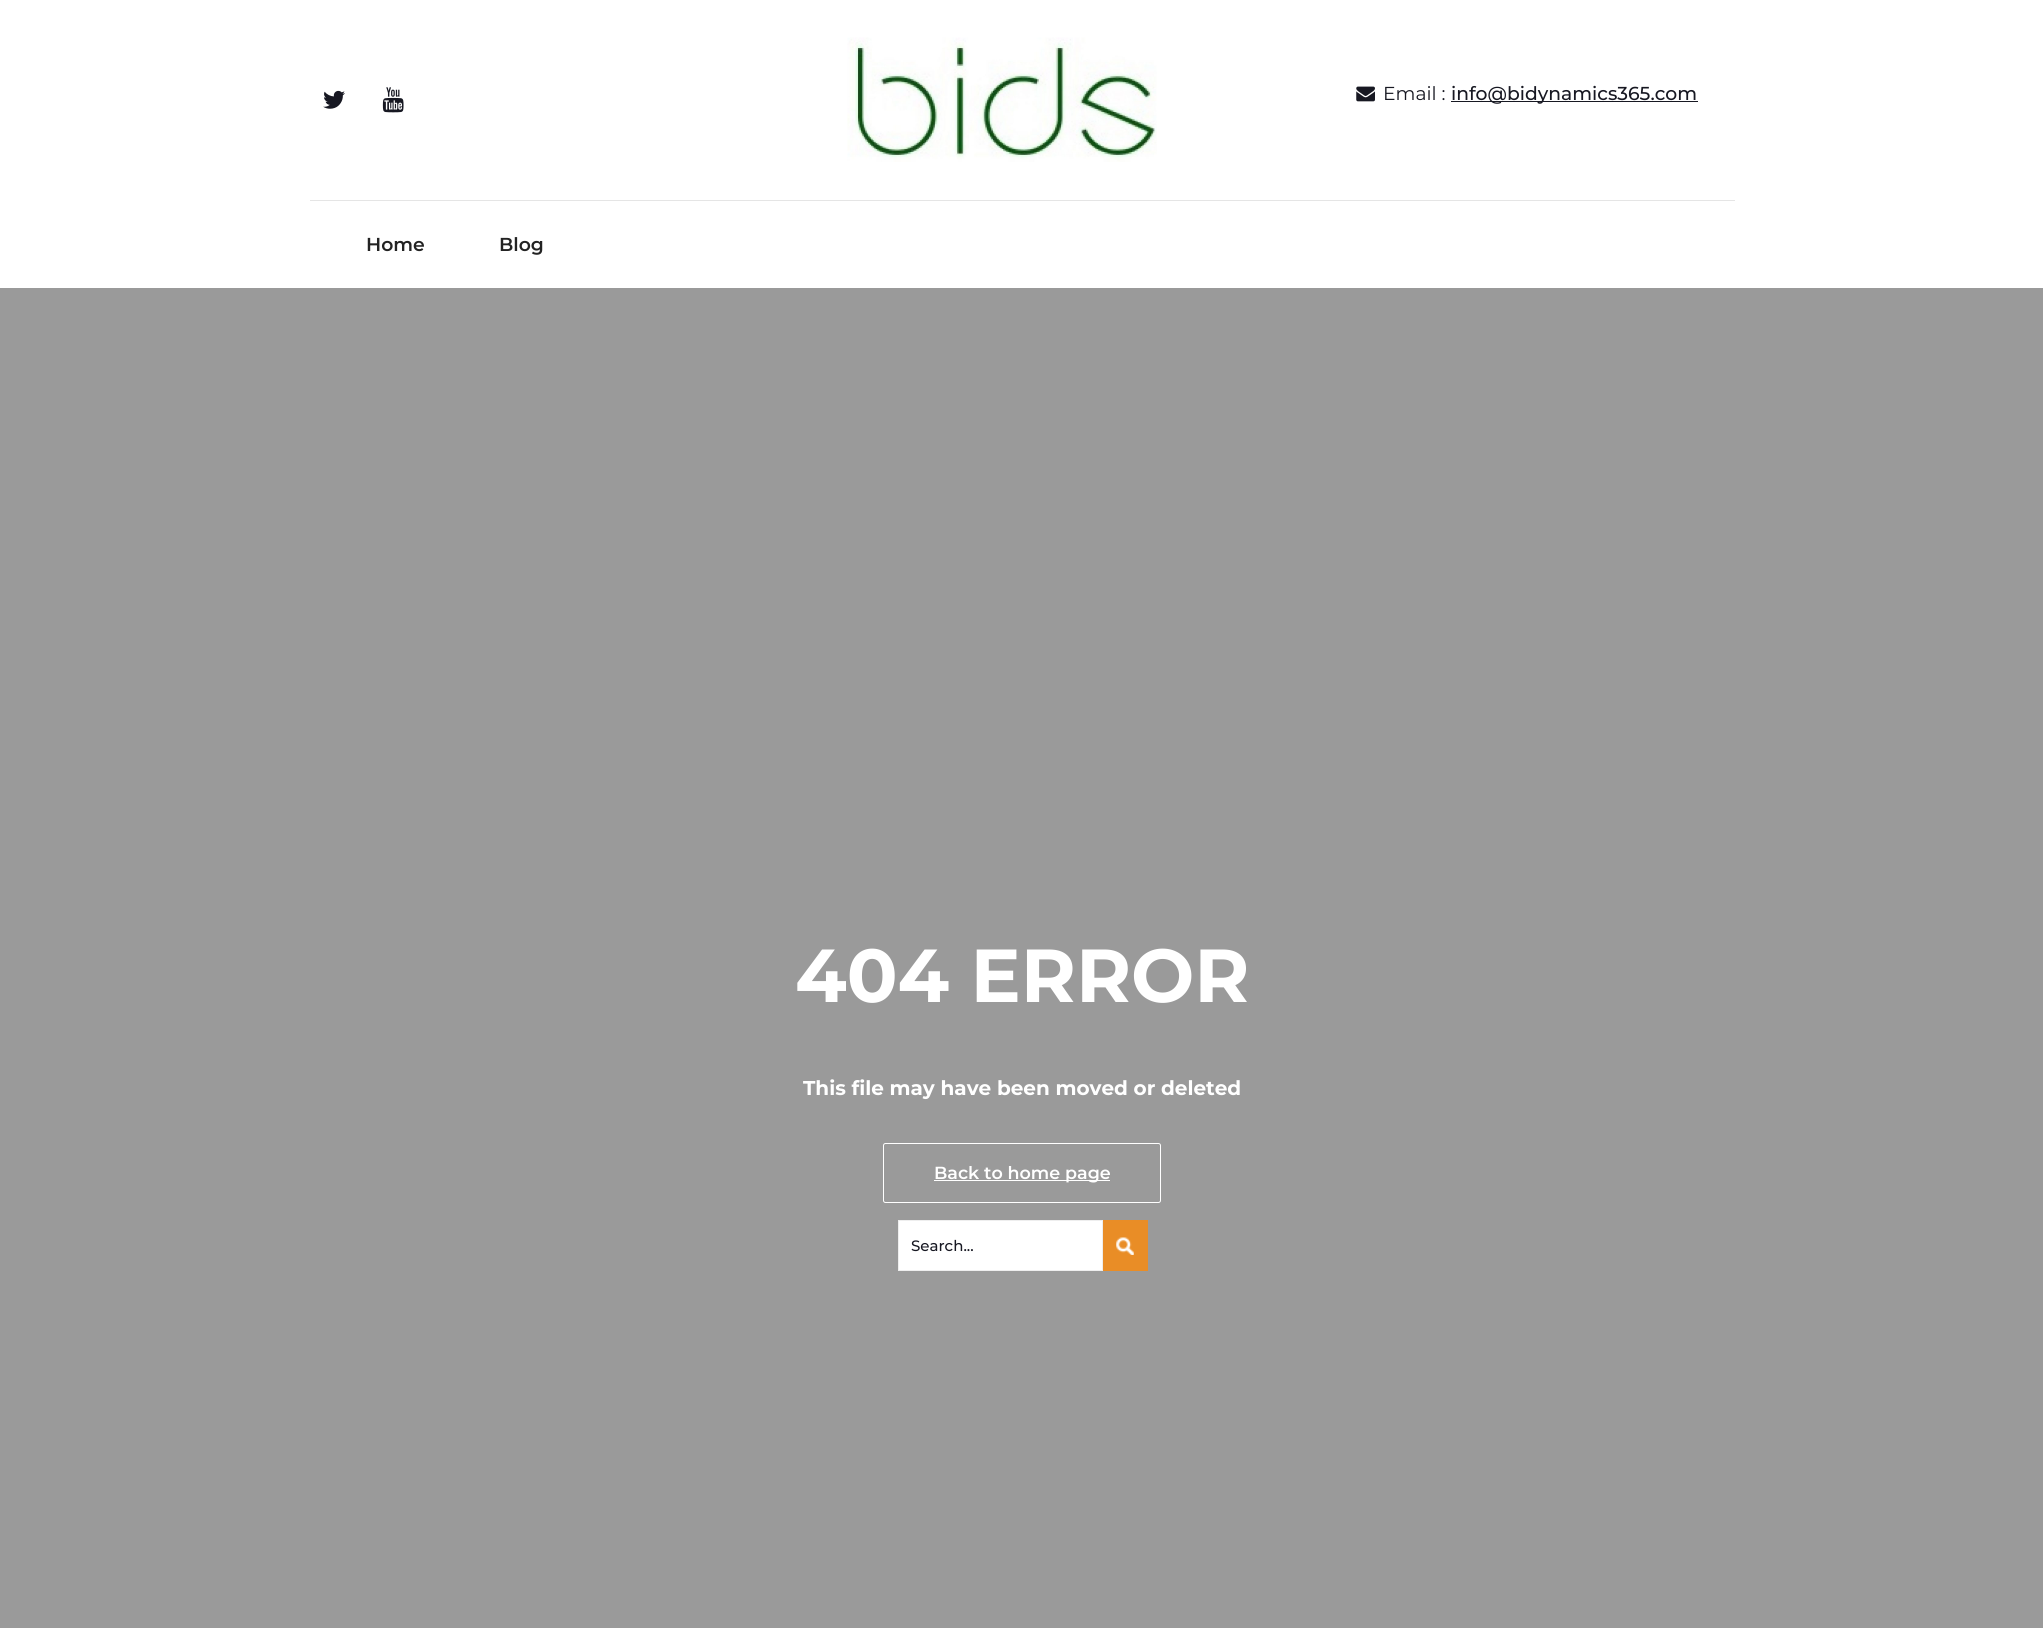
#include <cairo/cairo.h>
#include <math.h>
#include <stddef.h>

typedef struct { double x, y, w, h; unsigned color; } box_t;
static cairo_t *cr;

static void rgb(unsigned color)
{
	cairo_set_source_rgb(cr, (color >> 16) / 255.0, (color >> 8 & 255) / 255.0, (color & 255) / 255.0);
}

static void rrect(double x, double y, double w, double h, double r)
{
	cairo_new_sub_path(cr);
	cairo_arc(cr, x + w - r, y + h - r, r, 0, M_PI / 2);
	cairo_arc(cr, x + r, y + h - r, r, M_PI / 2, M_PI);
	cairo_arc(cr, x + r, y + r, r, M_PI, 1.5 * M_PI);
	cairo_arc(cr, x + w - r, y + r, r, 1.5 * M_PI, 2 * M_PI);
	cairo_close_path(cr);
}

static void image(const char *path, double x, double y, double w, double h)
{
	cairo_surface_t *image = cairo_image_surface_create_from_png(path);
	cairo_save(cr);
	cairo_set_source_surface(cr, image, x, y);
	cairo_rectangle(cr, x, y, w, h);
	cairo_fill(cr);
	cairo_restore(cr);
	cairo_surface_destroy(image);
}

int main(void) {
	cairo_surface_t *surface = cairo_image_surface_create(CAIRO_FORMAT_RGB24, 2043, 1628);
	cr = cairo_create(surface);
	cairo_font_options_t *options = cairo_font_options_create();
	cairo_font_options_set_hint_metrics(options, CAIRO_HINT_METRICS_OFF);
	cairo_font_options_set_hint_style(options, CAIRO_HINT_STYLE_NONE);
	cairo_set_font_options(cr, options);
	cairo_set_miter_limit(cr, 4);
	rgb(0xffffff);
	cairo_paint(cr);
	image("img/1.png", 323, 90, 22, 19);
	image("img/2.png", 382, 87, 22, 26);
	image("img/3.png", 847, 37, 310, 125);
	image("img/4.png", 1356, 86, 19, 16);
	{
		static const box_t items[] = {
			{1451, 101, 247, 1, 0x171822},
			{310, 200, 1425, 1, 0xe5e5e5},
			{0, 288, 2043, 1340, 0x9a9a9a},
		};
		for (size_t i = 0; i < sizeof items / sizeof *items; i++) {
			rgb(items[i].color);
			cairo_rectangle(cr, items[i].x, items[i].y, items[i].w, items[i].h);
			cairo_fill(cr);
		}
	}
	rrect(883.5, 1143.5, 277, 59, 2);
	rgb(0xffffff);
	cairo_set_line_width(cr, 1);
	cairo_stroke(cr);
	cairo_rectangle(cr, 934, 1180, 176, 1);
	cairo_fill(cr);
	cairo_rectangle(cr, 898.5, 1220.5, 204, 50);
	cairo_fill_preserve(cr);
	rgb(0xeeeeee);
	cairo_stroke(cr);
	rgb(0xe98d26);
	cairo_rectangle(cr, 1103, 1220, 45, 51);
	cairo_fill(cr);
	image("img/5.png", 1116, 1237, 18, 18);
	cairo_select_font_face(cr, "Montserrat", CAIRO_FONT_SLANT_NORMAL, CAIRO_FONT_WEIGHT_NORMAL);
	cairo_set_font_size(cr, 18.75);
	rgb(0x171822);
	cairo_move_to(cr, 1383, 100);
	cairo_show_text(cr, "Email :");
	cairo_select_font_face(cr, "Montserrat Medium", CAIRO_FONT_SLANT_NORMAL, CAIRO_FONT_WEIGHT_NORMAL);
	cairo_move_to(cr, 1451, 100);
	cairo_show_text(cr, "info@bidynamics365.com");
	cairo_select_font_face(cr, "Montserrat SemiBold", CAIRO_FONT_SLANT_NORMAL, CAIRO_FONT_WEIGHT_NORMAL);
	rgb(0x232323);
	cairo_move_to(cr, 366, 251);
	cairo_show_text(cr, "Home");
	cairo_move_to(cr, 499, 251);
	cairo_show_text(cr, "Blog");
	cairo_select_font_face(cr, "Montserrat", CAIRO_FONT_SLANT_NORMAL, CAIRO_FONT_WEIGHT_BOLD);
	cairo_set_font_size(cr, 75);
	rgb(0xffffff);
	cairo_move_to(cr, 795, 1002);
	cairo_show_text(cr, "404 ERROR");
	cairo_set_font_size(cr, 20);
	cairo_move_to(cr, 803, 1095);
	cairo_show_text(cr, "This file may have been moved or deleted");
	cairo_select_font_face(cr, "Montserrat SemiBold", CAIRO_FONT_SLANT_NORMAL, CAIRO_FONT_WEIGHT_NORMAL);
	cairo_set_font_size(cr, 17.5);
	cairo_move_to(cr, 934, 1179);
	cairo_show_text(cr, "Back to home page");
	cairo_select_font_face(cr, "Montserrat Medium", CAIRO_FONT_SLANT_NORMAL, CAIRO_FONT_WEIGHT_NORMAL);
	cairo_set_font_size(cr, 15);
	rgb(0x171822);
	cairo_move_to(cr, 911, 1251);
	cairo_show_text(cr, "Search...");
	cairo_surface_write_to_png(surface, "page.png");
	cairo_font_options_destroy(options);
	cairo_destroy(cr);
	cairo_surface_destroy(surface);
	return 0;
}
